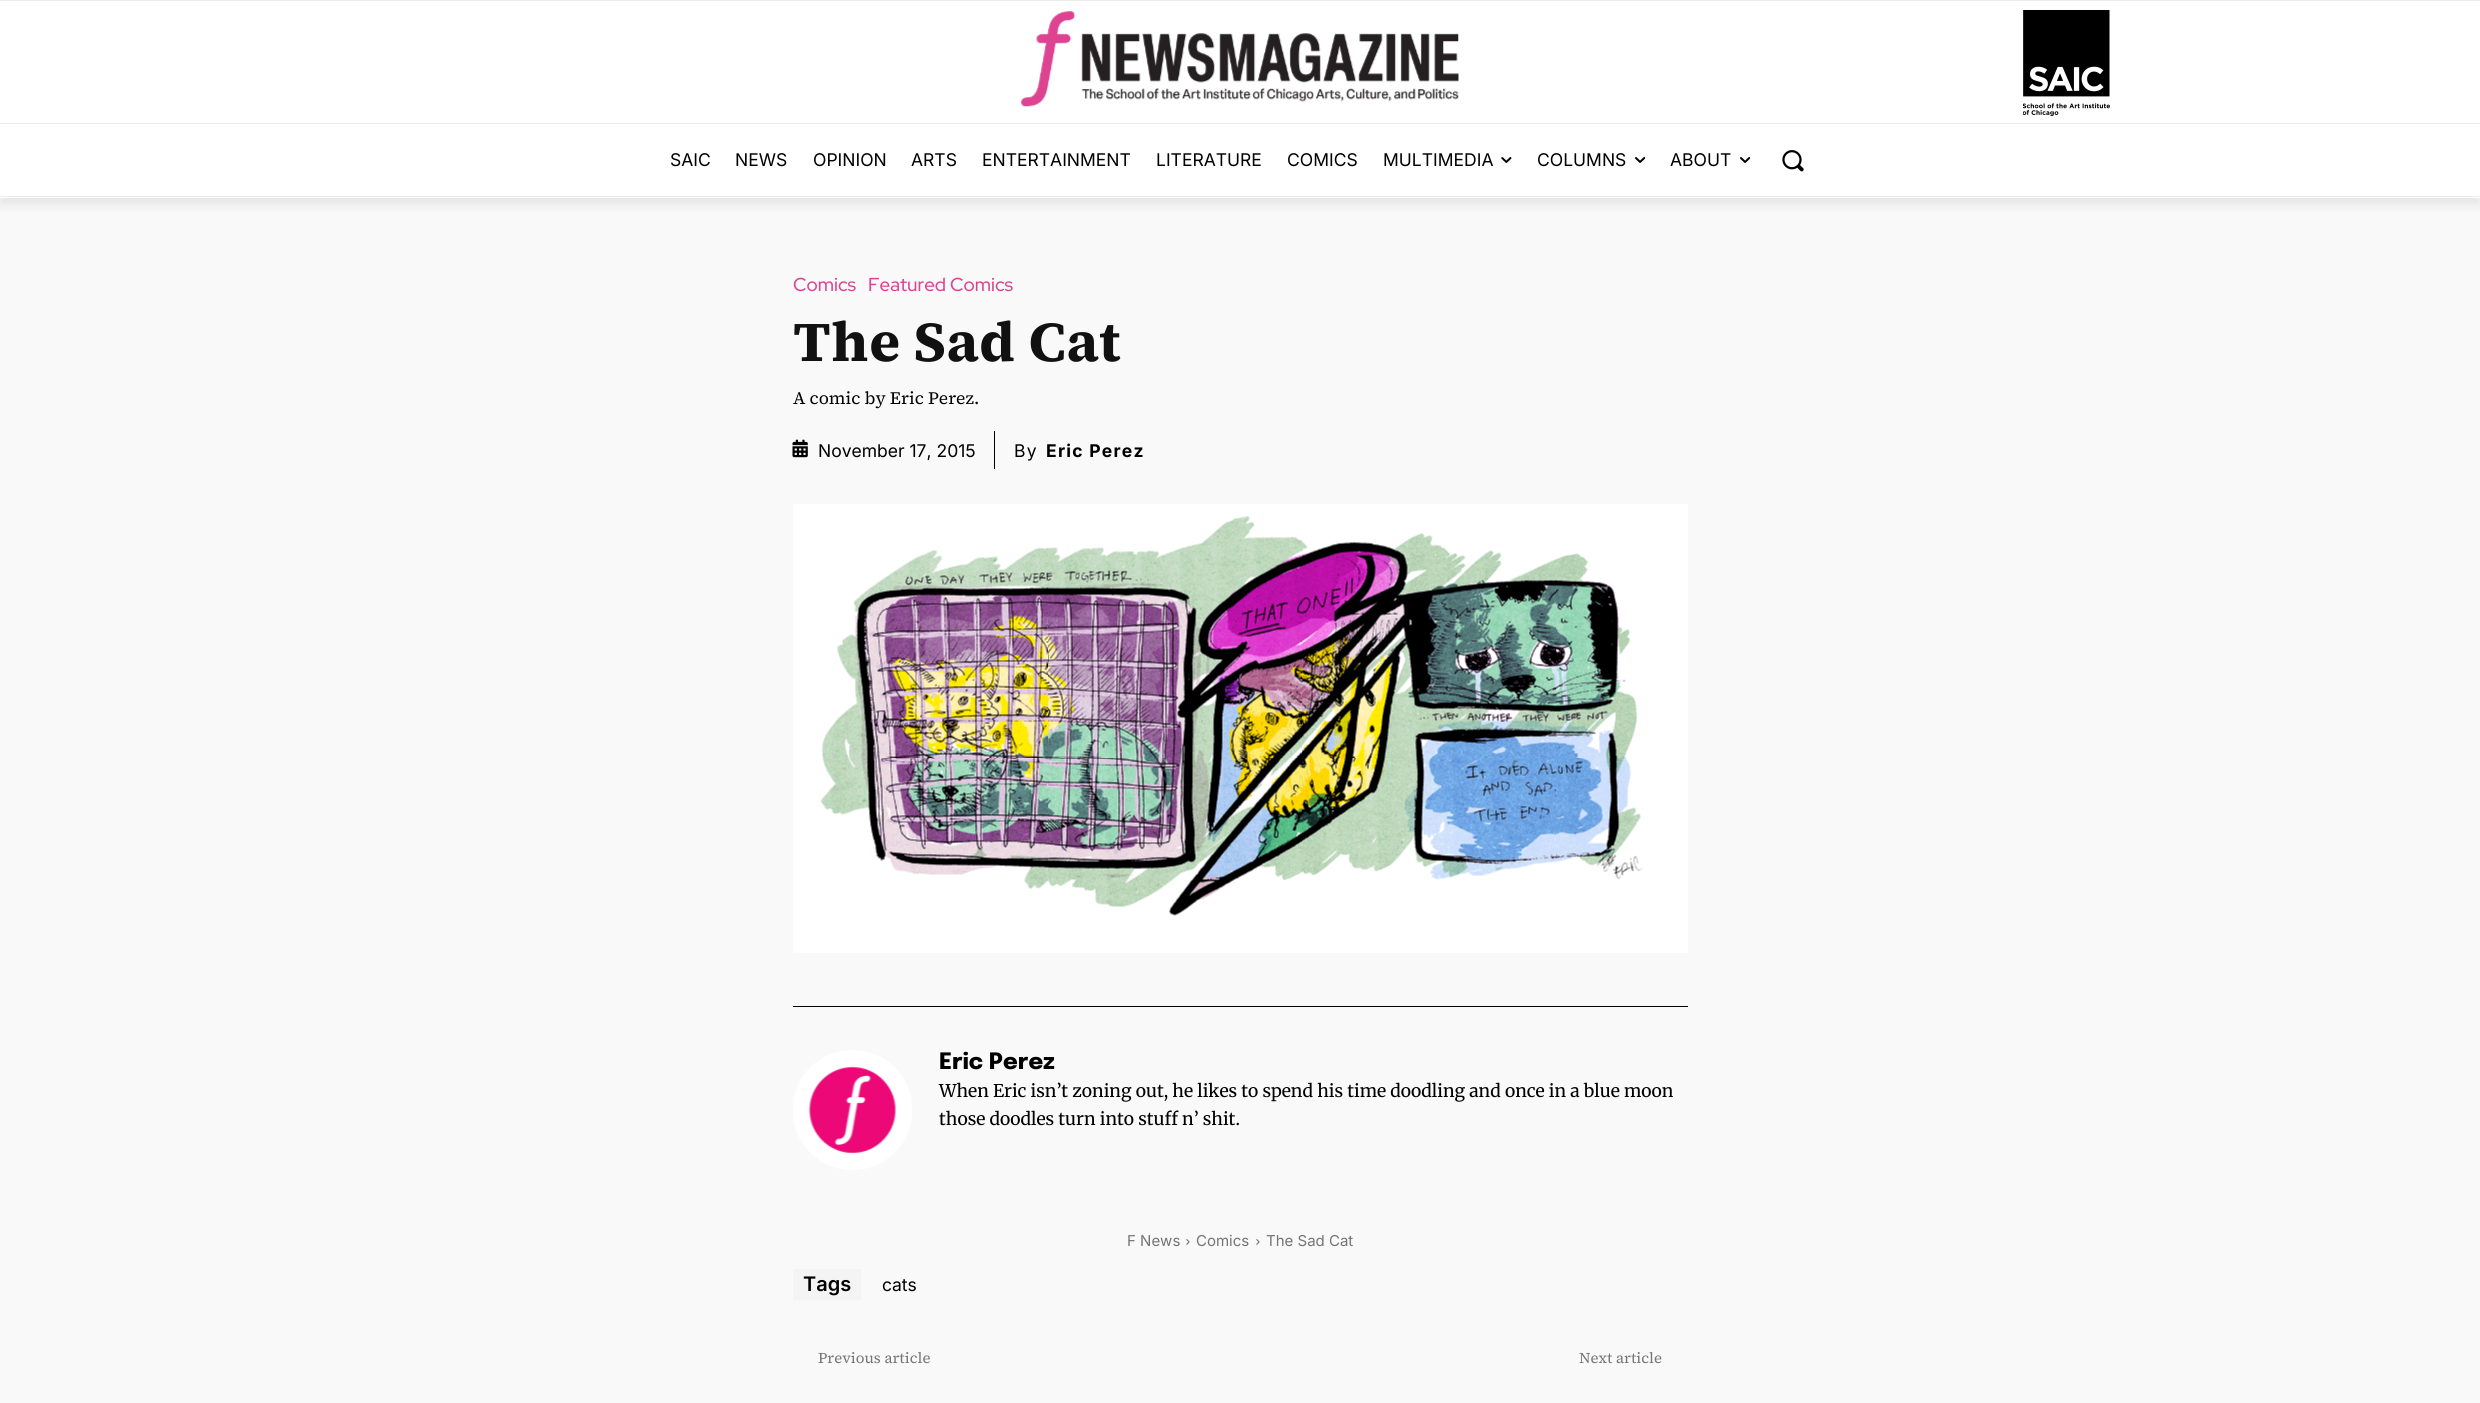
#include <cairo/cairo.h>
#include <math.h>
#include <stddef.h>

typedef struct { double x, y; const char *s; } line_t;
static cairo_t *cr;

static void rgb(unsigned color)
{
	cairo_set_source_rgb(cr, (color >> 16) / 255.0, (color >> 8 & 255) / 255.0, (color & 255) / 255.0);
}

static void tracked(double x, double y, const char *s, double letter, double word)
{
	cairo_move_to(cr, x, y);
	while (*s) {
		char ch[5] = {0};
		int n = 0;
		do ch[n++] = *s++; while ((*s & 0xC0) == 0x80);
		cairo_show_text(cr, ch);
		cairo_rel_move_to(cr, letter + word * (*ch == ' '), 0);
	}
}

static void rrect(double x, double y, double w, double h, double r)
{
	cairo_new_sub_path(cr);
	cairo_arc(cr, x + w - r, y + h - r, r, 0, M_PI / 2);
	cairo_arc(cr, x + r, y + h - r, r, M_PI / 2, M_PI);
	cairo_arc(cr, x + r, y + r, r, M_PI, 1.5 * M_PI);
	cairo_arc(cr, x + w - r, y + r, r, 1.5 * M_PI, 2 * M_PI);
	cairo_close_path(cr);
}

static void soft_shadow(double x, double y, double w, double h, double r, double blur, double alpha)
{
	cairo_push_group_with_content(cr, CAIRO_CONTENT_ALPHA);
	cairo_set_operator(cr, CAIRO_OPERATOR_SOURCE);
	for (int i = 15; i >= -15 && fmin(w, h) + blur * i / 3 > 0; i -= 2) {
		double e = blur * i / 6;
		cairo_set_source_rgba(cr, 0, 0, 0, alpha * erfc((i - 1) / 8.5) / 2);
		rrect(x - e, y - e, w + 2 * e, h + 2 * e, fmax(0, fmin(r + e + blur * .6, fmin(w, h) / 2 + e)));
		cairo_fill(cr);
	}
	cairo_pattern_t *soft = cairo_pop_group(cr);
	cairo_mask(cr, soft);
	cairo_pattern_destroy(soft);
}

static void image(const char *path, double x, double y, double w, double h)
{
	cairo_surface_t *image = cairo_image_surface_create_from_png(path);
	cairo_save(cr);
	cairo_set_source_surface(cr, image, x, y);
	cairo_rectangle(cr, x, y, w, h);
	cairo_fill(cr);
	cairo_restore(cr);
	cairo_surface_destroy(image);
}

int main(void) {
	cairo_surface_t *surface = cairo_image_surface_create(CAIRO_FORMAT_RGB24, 2480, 1403);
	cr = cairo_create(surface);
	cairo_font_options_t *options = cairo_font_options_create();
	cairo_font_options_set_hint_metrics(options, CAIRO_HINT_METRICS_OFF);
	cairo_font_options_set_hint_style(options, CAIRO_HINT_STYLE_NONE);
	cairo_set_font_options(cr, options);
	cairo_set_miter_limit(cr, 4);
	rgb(0xf9f9f9);
	cairo_paint(cr);
	rgb(0xebebeb);
	cairo_rectangle(cr, 0, 0, 2480, 1);
	cairo_fill(cr);
	rgb(0xffffff);
	cairo_rectangle(cr, 0, 1, 2480, 197);
	cairo_fill(cr);
	image("img/1.png", 1021, 11, 438, 96);
	image("img/2.png", 2023, 10, 87, 106);
	rgb(0xebebeb);
	cairo_rectangle(cr, 0, 123, 2480, 1);
	cairo_fill(cr);
	cairo_rectangle(cr, 0, 196, 2480, 1);
	cairo_fill(cr);
	cairo_save(cr);
	cairo_set_fill_rule(cr, CAIRO_FILL_RULE_EVEN_ODD);
	cairo_new_path(cr);
	cairo_move_to(cr, 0, 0);
	cairo_line_to(cr, 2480, 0);
	cairo_line_to(cr, 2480, 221);
	cairo_line_to(cr, 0, 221);
	cairo_close_path(cr);
	cairo_move_to(cr, 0, 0);
	cairo_line_to(cr, 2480, 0);
	cairo_line_to(cr, 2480, 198);
	cairo_line_to(cr, 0, 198);
	cairo_close_path(cr);
	cairo_clip(cr);
	rgb(0x000000);
	soft_shadow(0, 8, 2480, 197, 0, 5, 0.08);
	cairo_restore(cr);
	image("img/3.png", 1501, 157, 11, 6);
	image("img/4.png", 1635, 157, 11, 6);
	image("img/4.png", 1740, 157, 11, 6);
	image("img/5.png", 1782, 150, 22, 22);
	image("img/6.png", 792, 439, 16, 19);
	rgb(0x000000);
	cairo_rectangle(cr, 994, 431, 1, 38);
	cairo_fill(cr);
	image("img/7.png", 793, 504, 895, 449);
	cairo_rectangle(cr, 793, 1006, 895, 1);
	cairo_fill(cr);
	image("img/8.png", 793, 1050, 119, 120);
	image("img/9.png", 1186, 1239, 4, 6);
	image("img/9.png", 1256, 1239, 4, 6);
	rgb(0xf4f4f4);
	cairo_rectangle(cr, 793, 1269, 68, 31);
	cairo_fill(cr);
	cairo_select_font_face(cr, "Inter", CAIRO_FONT_SLANT_NORMAL, CAIRO_FONT_WEIGHT_NORMAL);
	cairo_set_font_size(cr, 17.5);
	rgb(0x000000);
	{
		static const line_t items[] = {
			{670, 166, "SAIC"},
			{735, 166, "NEWS"},
			{813, 166, "OPINION"},
			{911, 166, "ARTS"},
			{982, 166, "ENTERTAINMENT"},
			{1156, 166, "LITERATURE"},
			{1287, 166, "COMICS"},
			{1383, 166, "MULTIMEDIA"},
			{1537, 166, "COLUMNS"},
			{1670, 166, "ABOUT"},
		};
		for (size_t i = 0; i < sizeof items / sizeof *items; i++) {
			cairo_move_to(cr, items[i].x, items[i].y);
			cairo_show_text(cr, items[i].s);
		}
	}
	cairo_select_font_face(cr, "Red Hat Display Medium", CAIRO_FONT_SLANT_NORMAL, CAIRO_FONT_WEIGHT_NORMAL);
	cairo_set_font_size(cr, 18.75);
	rgb(0xdd4390);
	cairo_move_to(cr, 793, 291);
	cairo_show_text(cr, "Comics");
	cairo_move_to(cr, 868, 291);
	cairo_show_text(cr, "Featured Comics");
	cairo_select_font_face(cr, "Source Serif 4", CAIRO_FONT_SLANT_NORMAL, CAIRO_FONT_WEIGHT_BOLD);
	cairo_set_font_size(cr, 56.25);
	rgb(0x111111);
	tracked(793, 361, "The Sad Cat", 0.6, 0);
	cairo_select_font_face(cr, "Source Serif 4", CAIRO_FONT_SLANT_NORMAL, CAIRO_FONT_WEIGHT_NORMAL);
	cairo_set_font_size(cr, 17.5);
	rgb(0x000000);
	cairo_move_to(cr, 793, 404);
	cairo_show_text(cr, "A comic by Eric Perez.");
	cairo_select_font_face(cr, "Inter", CAIRO_FONT_SLANT_NORMAL, CAIRO_FONT_WEIGHT_NORMAL);
	cairo_move_to(cr, 818, 457);
	cairo_show_text(cr, "November 17, 2015");
	tracked(1014, 457, "By", 1.25, 0);
	cairo_select_font_face(cr, "Inter", CAIRO_FONT_SLANT_NORMAL, CAIRO_FONT_WEIGHT_BOLD);
	tracked(1046, 457, "Eric Perez", 1.25, 0);
	cairo_select_font_face(cr, "Epilogue ExtraBold", CAIRO_FONT_SLANT_NORMAL, CAIRO_FONT_WEIGHT_NORMAL);
	cairo_set_font_size(cr, 22.5);
	cairo_move_to(cr, 939, 1069);
	cairo_show_text(cr, "Eric Perez");
	cairo_select_font_face(cr, "Merriweather Light", CAIRO_FONT_SLANT_NORMAL, CAIRO_FONT_WEIGHT_NORMAL);
	cairo_set_font_size(cr, 17.5);
	cairo_move_to(cr, 939, 1097);
	cairo_show_text(cr, "When Eric isn’t zoning out, he likes to spend his time doodling and once in a blue moon");
	cairo_move_to(cr, 939, 1125);
	cairo_show_text(cr, "those doodles turn into stuff n’ shit.");
	cairo_select_font_face(cr, "Inter", CAIRO_FONT_SLANT_NORMAL, CAIRO_FONT_WEIGHT_NORMAL);
	cairo_set_font_size(cr, 15);
	rgb(0x747474);
	{
		static const line_t items[] = {
			{1127, 1246, "F News"},
			{1196, 1246, "Comics"},
			{1266, 1246, "The Sad Cat"},
		};
		for (size_t i = 0; i < sizeof items / sizeof *items; i++) {
			cairo_move_to(cr, items[i].x, items[i].y);
			cairo_show_text(cr, items[i].s);
		}
	}
	cairo_select_font_face(cr, "Inter SemiBold", CAIRO_FONT_SLANT_NORMAL, CAIRO_FONT_WEIGHT_NORMAL);
	cairo_set_font_size(cr, 20);
	rgb(0x000000);
	cairo_move_to(cr, 803, 1291);
	cairo_show_text(cr, "Tags");
	cairo_select_font_face(cr, "Inter", CAIRO_FONT_SLANT_NORMAL, CAIRO_FONT_WEIGHT_NORMAL);
	cairo_set_font_size(cr, 17.5);
	cairo_move_to(cr, 882, 1291);
	cairo_show_text(cr, "cats");
	cairo_select_font_face(cr, "Source Serif 4", CAIRO_FONT_SLANT_NORMAL, CAIRO_FONT_WEIGHT_NORMAL);
	cairo_set_font_size(cr, 15);
	rgb(0x747474);
	cairo_move_to(cr, 818, 1363);
	cairo_show_text(cr, "Previous article");
	cairo_move_to(cr, 1579, 1363);
	cairo_show_text(cr, "Next article");
	cairo_surface_write_to_png(surface, "page.png");
	cairo_font_options_destroy(options);
	cairo_destroy(cr);
	cairo_surface_destroy(surface);
	return 0;
}
